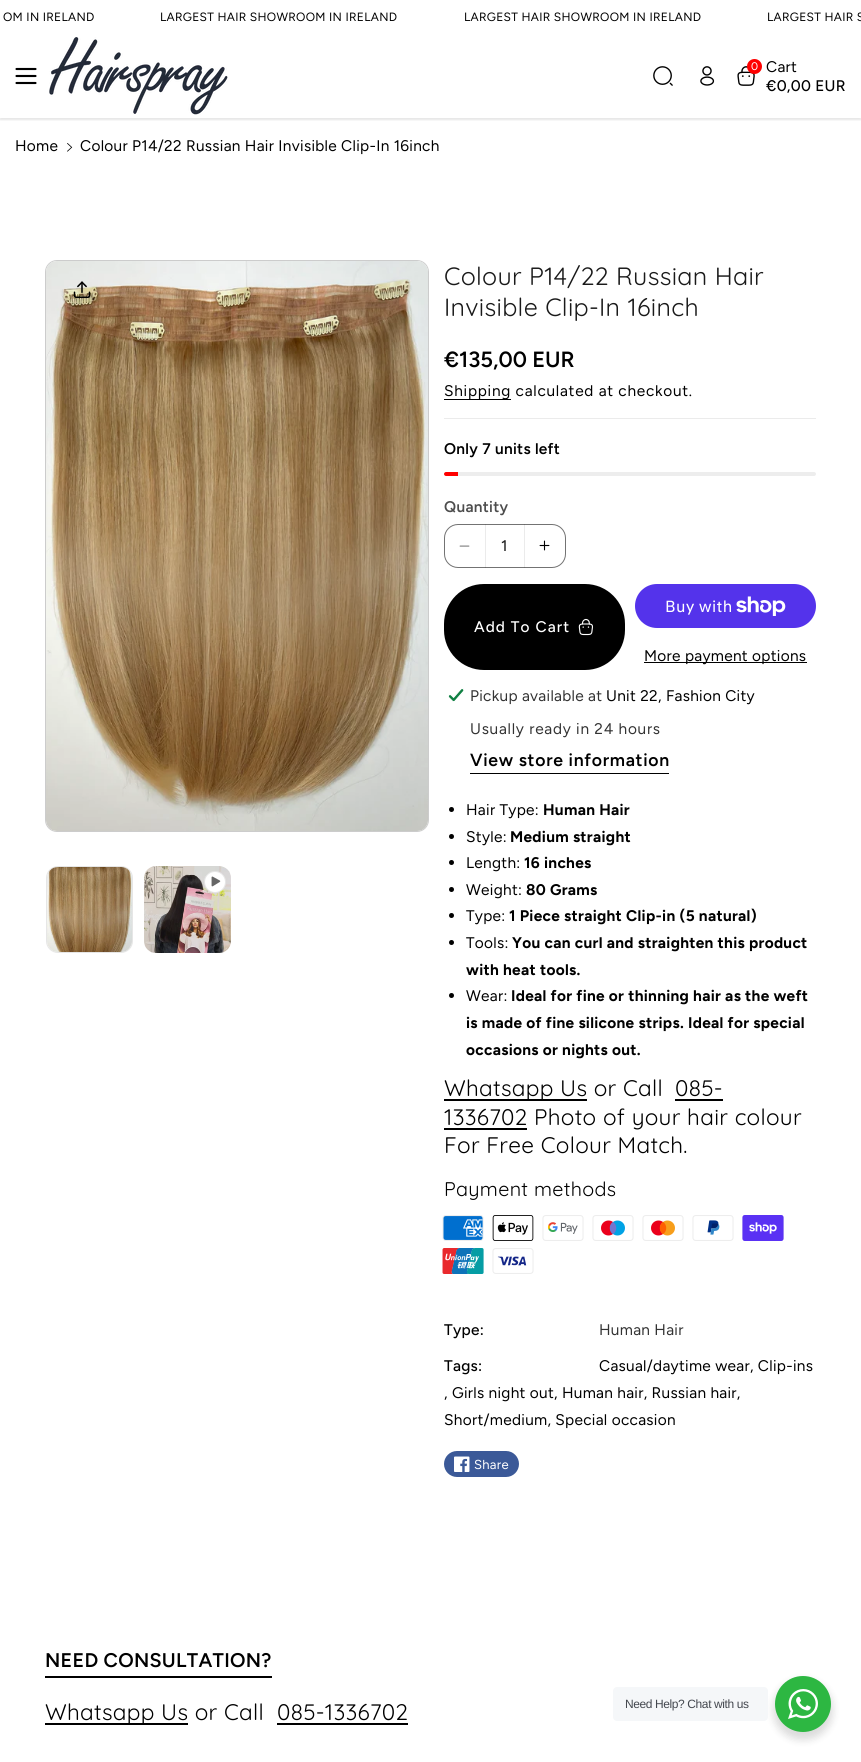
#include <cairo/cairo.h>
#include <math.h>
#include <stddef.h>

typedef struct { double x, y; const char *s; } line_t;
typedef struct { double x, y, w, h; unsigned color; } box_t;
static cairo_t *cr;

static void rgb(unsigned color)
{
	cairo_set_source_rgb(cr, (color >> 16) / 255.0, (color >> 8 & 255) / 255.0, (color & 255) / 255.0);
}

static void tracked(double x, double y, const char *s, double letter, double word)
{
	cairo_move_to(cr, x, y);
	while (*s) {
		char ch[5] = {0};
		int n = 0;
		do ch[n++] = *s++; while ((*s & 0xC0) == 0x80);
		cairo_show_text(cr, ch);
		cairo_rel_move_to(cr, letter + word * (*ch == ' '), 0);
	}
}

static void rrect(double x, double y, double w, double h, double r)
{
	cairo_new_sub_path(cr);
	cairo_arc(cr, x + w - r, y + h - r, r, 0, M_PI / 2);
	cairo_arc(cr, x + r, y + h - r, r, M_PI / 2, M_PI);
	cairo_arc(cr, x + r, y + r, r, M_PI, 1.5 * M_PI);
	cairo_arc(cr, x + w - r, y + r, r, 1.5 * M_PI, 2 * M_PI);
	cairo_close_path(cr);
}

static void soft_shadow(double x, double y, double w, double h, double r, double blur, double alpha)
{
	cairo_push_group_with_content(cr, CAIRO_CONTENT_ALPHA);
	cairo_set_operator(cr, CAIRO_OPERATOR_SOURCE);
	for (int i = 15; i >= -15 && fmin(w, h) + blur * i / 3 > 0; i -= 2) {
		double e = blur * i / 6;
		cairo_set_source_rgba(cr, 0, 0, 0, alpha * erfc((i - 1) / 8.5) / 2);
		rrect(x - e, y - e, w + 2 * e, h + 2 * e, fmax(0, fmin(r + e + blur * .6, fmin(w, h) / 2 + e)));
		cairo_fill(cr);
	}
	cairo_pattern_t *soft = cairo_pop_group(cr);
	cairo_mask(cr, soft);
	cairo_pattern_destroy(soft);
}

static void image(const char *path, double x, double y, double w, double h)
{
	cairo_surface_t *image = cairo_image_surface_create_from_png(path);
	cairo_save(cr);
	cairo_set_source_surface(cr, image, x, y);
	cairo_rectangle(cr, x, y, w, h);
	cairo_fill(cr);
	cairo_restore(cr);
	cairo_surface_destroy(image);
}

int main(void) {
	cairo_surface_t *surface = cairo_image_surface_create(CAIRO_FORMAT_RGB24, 861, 1762);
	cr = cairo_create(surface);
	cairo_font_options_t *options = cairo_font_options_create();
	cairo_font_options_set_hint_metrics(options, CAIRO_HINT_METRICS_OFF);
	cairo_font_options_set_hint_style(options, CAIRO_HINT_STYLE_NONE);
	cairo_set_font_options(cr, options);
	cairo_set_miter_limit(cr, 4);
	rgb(0xffffff);
	cairo_paint(cr);
	cairo_save(cr);
	cairo_rectangle(cr, 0, 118, 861, 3);
	cairo_clip(cr);
	rgb(0x000000);
	soft_shadow(0, 36, 861, 84, 0, 1, 0.1);
	cairo_restore(cr);
	cairo_new_path(cr);
	cairo_move_to(cr, 16.5, 83);
	cairo_line_to(cr, 35.5, 83);
	cairo_move_to(cr, 16.5, 76);
	cairo_line_to(cr, 35.5, 76);
	cairo_move_to(cr, 16.5, 69);
	cairo_line_to(cr, 35.5, 69);
	rgb(0x000000);
	cairo_set_line_width(cr, 2.1);
	cairo_set_line_cap(cr, CAIRO_LINE_CAP_ROUND);
	cairo_set_line_join(cr, CAIRO_LINE_JOIN_ROUND);
	cairo_stroke(cr);
	image("img/1.png", 49, 37, 179, 78);
	image("img/2.png", 653, 66, 20, 20);
	image("img/3.png", 700, 66, 15, 20);
	image("img/4.png", 737, 66, 18, 20);
	rgb(0xff0000);
	cairo_arc(cr, 754.5, 66.5, 7.5, 0, 2 * M_PI);
	cairo_fill(cr);
	image("img/5.png", 67, 143, 6, 9);
	rrect(45.5, 260.5, 383, 571, 11.5);
	rgb(0xcccccc);
	cairo_set_line_width(cr, 1);
	cairo_set_line_cap(cr, CAIRO_LINE_CAP_BUTT);
	cairo_set_line_join(cr, CAIRO_LINE_JOIN_MITER);
	cairo_stroke(cr);
	image("img/6.png", 46, 261, 382, 570);
	image("img/7.png", 73, 281, 18, 17);
	rrect(46.5, 866.5, 86, 86, 11.5);
	rgb(0xe6e6e6);
	cairo_stroke(cr);
	image("img/8.png", 47, 867, 85, 85);
	image("img/9.png", 144, 866, 87, 87);
	rgb(0xffffff);
	cairo_arc(cr, 215, 882, 11, 0, 2 * M_PI);
	cairo_fill(cr);
	cairo_arc(cr, 215, 882, 10.5, 0, 2 * M_PI);
	cairo_set_source_rgba(cr, 0, 0, 0, 0.1);
	cairo_stroke(cr);
	image("img/10.png", 211, 876, 10, 11);
	rgb(0xebebeb);
	cairo_rectangle(cr, 444, 418, 372, 1);
	cairo_fill(cr);
	rgb(0x000000);
	cairo_rectangle(cr, 444, 399, 67, 1);
	cairo_fill(cr);
	rgb(0xededed);
	rrect(444, 472, 372, 4, 2);
	cairo_fill(cr);
	rgb(0xff0000);
	cairo_new_path(cr);
	cairo_move_to(cr, 446, 472);
	cairo_line_to(cr, 458, 472);
	cairo_line_to(cr, 458, 476);
	cairo_line_to(cr, 446, 476);
	cairo_curve_to(cr, 445, 476, 444, 475, 444, 474);
	cairo_curve_to(cr, 444, 473, 445, 472, 446, 472);
	cairo_close_path(cr);
	cairo_fill(cr);
	image("img/11.png", 459, 545, 11, 2);
	rgb(0xebebeb);
	cairo_rectangle(cr, 524, 524, 1, 44);
	cairo_fill(cr);
	cairo_rectangle(cr, 485, 524, 1, 44);
	cairo_fill(cr);
	image("img/12.png", 539, 540, 11, 11);
	rrect(444.5, 524.5, 121, 43, 13.5);
	cairo_set_source_rgba(cr, 0, 0, 0, 0.55);
	cairo_stroke(cr);
	rgb(0x000000);
	rrect(444, 584, 181, 86, 40);
	cairo_fill(cr);
	image("img/13.png", 578, 618, 15, 18);
	rgb(0x5433eb);
	rrect(635, 584, 181, 44, 22);
	cairo_fill(cr);
	image("img/14.png", 736, 596, 50, 20);
	rgb(0x000000);
	cairo_rectangle(cr, 644, 662, 163, 1);
	cairo_fill(cr);
	image("img/15.png", 448, 688, 16, 14);
	cairo_rectangle(cr, 470, 773, 199, 1);
	cairo_fill(cr);
	cairo_arc(cr, 451.5, 809.5, 2.5, 0, 2 * M_PI);
	cairo_fill(cr);
	cairo_arc(cr, 451.5, 836.5, 2.5, 0, 2 * M_PI);
	cairo_fill(cr);
	cairo_arc(cr, 451.5, 862.5, 2.5, 0, 2 * M_PI);
	cairo_fill(cr);
	cairo_arc(cr, 451.5, 889.5, 2.5, 0, 2 * M_PI);
	cairo_fill(cr);
	cairo_arc(cr, 451.5, 915.5, 2.5, 0, 2 * M_PI);
	cairo_fill(cr);
	cairo_arc(cr, 451.5, 942.5, 2.5, 0, 2 * M_PI);
	cairo_fill(cr);
	cairo_arc(cr, 451.5, 995.5, 2.5, 0, 2 * M_PI);
	cairo_fill(cr);
	{
		static const box_t items[] = {
			{444, 1099, 143, 2, 0x000000},
			{675, 1099, 48, 2, 0x000000},
			{444, 1128, 83, 2, 0x000000},
		};
		for (size_t i = 0; i < sizeof items / sizeof *items; i++) {
			rgb(items[i].color);
			cairo_rectangle(cr, items[i].x, items[i].y, items[i].w, items[i].h);
			cairo_fill(cr);
		}
	}
	image("img/16.png", 442, 1215, 42, 26);
	image("img/17.png", 492, 1215, 42, 26);
	image("img/18.png", 542, 1215, 42, 26);
	image("img/19.png", 592, 1215, 42, 26);
	image("img/20.png", 642, 1215, 42, 26);
	image("img/21.png", 692, 1215, 42, 26);
	image("img/22.png", 742, 1215, 42, 26);
	image("img/23.png", 442, 1248, 42, 26);
	image("img/24.png", 492, 1248, 42, 26);
	rgb(0x3b5998);
	rrect(444, 1451, 75, 26, 13);
	cairo_fill(cr);
	image("img/25.png", 454, 1456, 16, 16);
	{
		static const box_t items[] = {
			{45, 1676, 227, 2, 0x000000},
			{45, 1723, 143, 2, 0x000000},
			{277, 1723, 131, 2, 0x000000},
		};
		for (size_t i = 0; i < sizeof items / sizeof *items; i++) {
			rgb(items[i].color);
			cairo_rectangle(cr, items[i].x, items[i].y, items[i].w, items[i].h);
			cairo_fill(cr);
		}
	}
	rgb(0x000000);
	soft_shadow(773, 1680, 60, 60, 30, 4, 0.14);
	rgb(0xf5f7f9);
	rrect(613, 1687, 155, 34, 4);
	cairo_fill(cr);
	rgb(0x2db742);
	cairo_arc(cr, 803, 1704, 28, 0, 2 * M_PI);
	cairo_fill(cr);
	image("img/26.png", 788, 1689, 30, 30);
	cairo_select_font_face(cr, "Figtree", CAIRO_FONT_SLANT_NORMAL, CAIRO_FONT_WEIGHT_NORMAL);
	cairo_set_font_size(cr, 12);
	rgb(0x000000);
	{
		static const line_t items[] = {
			{3, 21, "OM IN IRELAND"},
			{160, 21, "LARGEST HAIR SHOWROOM IN IRELAND"},
			{464, 21, "LARGEST HAIR SHOWROOM IN IRELAND"},
			{767, 21, "LARGEST HAIR S"},
		};
		for (size_t i = 0; i < sizeof items / sizeof *items; i++) {
			tracked(items[i].x, items[i].y, items[i].s, 0.3, 0);
		}
	}
	cairo_set_font_size(cr, 11);
	rgb(0xffffff);
	tracked(751, 70, "0", 0.3, 0);
	cairo_set_font_size(cr, 15.4);
	rgb(0x000000);
	tracked(766, 72, "Cart", 0.3, 0);
	cairo_select_font_face(cr, "Figtree Medium", CAIRO_FONT_SLANT_NORMAL, CAIRO_FONT_WEIGHT_NORMAL);
	tracked(766, 91, "€0,00 EUR", 0.3, 0);
	cairo_select_font_face(cr, "Figtree", CAIRO_FONT_SLANT_NORMAL, CAIRO_FONT_WEIGHT_NORMAL);
	tracked(15, 151, "Home", 0.3, 0);
	tracked(80, 151, "Colour P14/22 Russian Hair Invisible Clip-In 16inch", 0.3, 0);
	cairo_select_font_face(cr, "Quicksand", CAIRO_FONT_SLANT_NORMAL, CAIRO_FONT_WEIGHT_NORMAL);
	cairo_set_font_size(cr, 25);
	rgb(0x1a1a1a);
	tracked(444, 285, "Colour P14/22 Russian Hair", 0.3, 0);
	tracked(444, 316, "Invisible Clip-In 16inch", 0.3, 0);
	cairo_select_font_face(cr, "Figtree SemiBold", CAIRO_FONT_SLANT_NORMAL, CAIRO_FONT_WEIGHT_NORMAL);
	cairo_set_font_size(cr, 22);
	rgb(0x000000);
	cairo_move_to(cr, 444, 367);
	cairo_show_text(cr, "€135,00 EUR");
	cairo_select_font_face(cr, "Figtree", CAIRO_FONT_SLANT_NORMAL, CAIRO_FONT_WEIGHT_NORMAL);
	cairo_set_font_size(cr, 15.4);
	tracked(444, 396, "Shipping calculated at checkout.", 0.75, 0);
	cairo_select_font_face(cr, "Figtree SemiBold", CAIRO_FONT_SLANT_NORMAL, CAIRO_FONT_WEIGHT_NORMAL);
	tracked(444, 454, "Only 7 units left", 0.3, 0);
	rgb(0x4d4d4d);
	tracked(444, 512, "Quantity", 0.3, 0);
	cairo_select_font_face(cr, "Figtree Medium", CAIRO_FONT_SLANT_NORMAL, CAIRO_FONT_WEIGHT_NORMAL);
	rgb(0x262626);
	cairo_move_to(cr, 501, 551);
	cairo_show_text(cr, "1");
	rgb(0xffffff);
	tracked(474, 632, "Add To Cart", 1.1, 0);
	cairo_select_font_face(cr, "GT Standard", CAIRO_FONT_SLANT_NORMAL, CAIRO_FONT_WEIGHT_NORMAL);
	cairo_set_font_size(cr, 16);
	tracked(665, 612, "Buy with", 0.3, 0);
	cairo_select_font_face(cr, "Figtree", CAIRO_FONT_SLANT_NORMAL, CAIRO_FONT_WEIGHT_NORMAL);
	cairo_set_font_size(cr, 15.4);
	rgb(0x000000);
	tracked(644, 661, "More payment options", 0.3, 0);
	rgb(0x333333);
	tracked(470, 701, "Pickup available at", 0.3, 0);
	rgb(0x000000);
	tracked(606, 701, "Unit 22, Fashion City", 0.3, 0);
	rgb(0x333333);
	tracked(470, 734, "Usually ready in 24 hours", 0.75, 0);
	cairo_select_font_face(cr, "Figtree SemiBold", CAIRO_FONT_SLANT_NORMAL, CAIRO_FONT_WEIGHT_NORMAL);
	cairo_set_font_size(cr, 17.6);
	rgb(0x000000);
	tracked(470, 766, "View store information", 0.7, 0);
	cairo_select_font_face(cr, "Figtree", CAIRO_FONT_SLANT_NORMAL, CAIRO_FONT_WEIGHT_NORMAL);
	cairo_set_font_size(cr, 15.4);
	tracked(466, 815, "Hair Type:", 0.3, 0);
	cairo_select_font_face(cr, "Figtree", CAIRO_FONT_SLANT_NORMAL, CAIRO_FONT_WEIGHT_BOLD);
	tracked(543, 815, "Human Hair", 0.3, 0);
	cairo_select_font_face(cr, "Figtree", CAIRO_FONT_SLANT_NORMAL, CAIRO_FONT_WEIGHT_NORMAL);
	tracked(466, 842, "Style:", 0.3, 0);
	cairo_select_font_face(cr, "Figtree", CAIRO_FONT_SLANT_NORMAL, CAIRO_FONT_WEIGHT_BOLD);
	tracked(510, 842, "Medium straight", 0.3, 0);
	cairo_select_font_face(cr, "Figtree", CAIRO_FONT_SLANT_NORMAL, CAIRO_FONT_WEIGHT_NORMAL);
	tracked(466, 868, "Length:", 0.3, 0);
	cairo_select_font_face(cr, "Figtree", CAIRO_FONT_SLANT_NORMAL, CAIRO_FONT_WEIGHT_BOLD);
	tracked(524, 868, "16 inches", 0.3, 0);
	cairo_select_font_face(cr, "Figtree", CAIRO_FONT_SLANT_NORMAL, CAIRO_FONT_WEIGHT_NORMAL);
	tracked(466, 895, "Weight:", 0.3, 0);
	cairo_select_font_face(cr, "Figtree", CAIRO_FONT_SLANT_NORMAL, CAIRO_FONT_WEIGHT_BOLD);
	tracked(526, 895, "80 Grams", 0.3, 0);
	cairo_select_font_face(cr, "Figtree", CAIRO_FONT_SLANT_NORMAL, CAIRO_FONT_WEIGHT_NORMAL);
	tracked(466, 921, "Type:", 0.3, 0);
	cairo_select_font_face(cr, "Figtree", CAIRO_FONT_SLANT_NORMAL, CAIRO_FONT_WEIGHT_BOLD);
	tracked(509, 921, "1 Piece straight Clip-in (5 natural)", 0.3, 0);
	cairo_select_font_face(cr, "Figtree", CAIRO_FONT_SLANT_NORMAL, CAIRO_FONT_WEIGHT_NORMAL);
	tracked(466, 948, "Tools:", 0.3, 0);
	cairo_select_font_face(cr, "Figtree", CAIRO_FONT_SLANT_NORMAL, CAIRO_FONT_WEIGHT_BOLD);
	tracked(512, 948, "You can curl and straighten this product", 0.3, 0);
	tracked(466, 975, "with heat tools.", 0.3, 0);
	cairo_select_font_face(cr, "Figtree", CAIRO_FONT_SLANT_NORMAL, CAIRO_FONT_WEIGHT_NORMAL);
	tracked(466, 1001, "Wear:", 0.3, 0);
	cairo_select_font_face(cr, "Figtree", CAIRO_FONT_SLANT_NORMAL, CAIRO_FONT_WEIGHT_BOLD);
	{
		static const line_t items[] = {
			{511, 1001, "Ideal for fine or thinning hair as the weft"},
			{466, 1028, "is made of fine silicone strips. Ideal for special"},
			{466, 1055, "occasions or nights out."},
		};
		for (size_t i = 0; i < sizeof items / sizeof *items; i++) {
			tracked(items[i].x, items[i].y, items[i].s, 0.3, 0);
		}
	}
	cairo_select_font_face(cr, "Quicksand", CAIRO_FONT_SLANT_NORMAL, CAIRO_FONT_WEIGHT_NORMAL);
	cairo_set_font_size(cr, 22.5);
	{
		static const line_t items[] = {
			{444, 1096, "Whatsapp Us or Call"},
			{675, 1096, "085-"},
			{444, 1125, "1336702 Photo of your hair colour"},
			{444, 1153, "For Free Colour Match."},
		};
		for (size_t i = 0; i < sizeof items / sizeof *items; i++) {
			tracked(items[i].x, items[i].y, items[i].s, 0.3, 0);
		}
	}
	cairo_set_font_size(cr, 19.75);
	tracked(444, 1196, "Payment methods", 0.3, 0);
	cairo_select_font_face(cr, "Figtree Medium", CAIRO_FONT_SLANT_NORMAL, CAIRO_FONT_WEIGHT_NORMAL);
	cairo_set_font_size(cr, 15.4);
	tracked(444, 1335, "Type:", 0.3, 0);
	cairo_select_font_face(cr, "Figtree", CAIRO_FONT_SLANT_NORMAL, CAIRO_FONT_WEIGHT_NORMAL);
	rgb(0x333333);
	tracked(599, 1335, "Human Hair", 0.3, 0);
	cairo_select_font_face(cr, "Figtree Medium", CAIRO_FONT_SLANT_NORMAL, CAIRO_FONT_WEIGHT_NORMAL);
	rgb(0x000000);
	tracked(444, 1371, "Tags:", 0.3, 0);
	cairo_select_font_face(cr, "Figtree", CAIRO_FONT_SLANT_NORMAL, CAIRO_FONT_WEIGHT_NORMAL);
	{
		static const line_t items[] = {
			{599, 1371, "Casual/daytime wear, Clip-ins"},
			{444, 1398, ", Girls night out, Human hair, Russian hair,"},
			{444, 1425, "Short/medium, Special occasion"},
		};
		for (size_t i = 0; i < sizeof items / sizeof *items; i++) {
			tracked(items[i].x, items[i].y, items[i].s, 0.3, 0);
		}
	}
	cairo_set_font_size(cr, 13);
	rgb(0xffffff);
	tracked(474, 1469, "Share", 0.3, 0);
	cairo_select_font_face(cr, "Figtree SemiBold", CAIRO_FONT_SLANT_NORMAL, CAIRO_FONT_WEIGHT_NORMAL);
	cairo_set_font_size(cr, 19.75);
	rgb(0x000000);
	tracked(45, 1667, "NEED CONSULTATION?", 0.3, 0);
	cairo_select_font_face(cr, "Quicksand", CAIRO_FONT_SLANT_NORMAL, CAIRO_FONT_WEIGHT_NORMAL);
	cairo_set_font_size(cr, 22.5);
	tracked(45, 1720, "Whatsapp Us or Call", 0.3, 0);
	tracked(277, 1720, "085-1336702", 0.3, 0);
	cairo_select_font_face(cr, "Liberation Sans", CAIRO_FONT_SLANT_NORMAL, CAIRO_FONT_WEIGHT_NORMAL);
	cairo_set_font_size(cr, 12);
	rgb(0x43474e);
	tracked(625, 1708, "Need Help? Chat with us", -0.4, 0);
	cairo_surface_write_to_png(surface, "page.png");
	cairo_font_options_destroy(options);
	cairo_destroy(cr);
	cairo_surface_destroy(surface);
	return 0;
}
